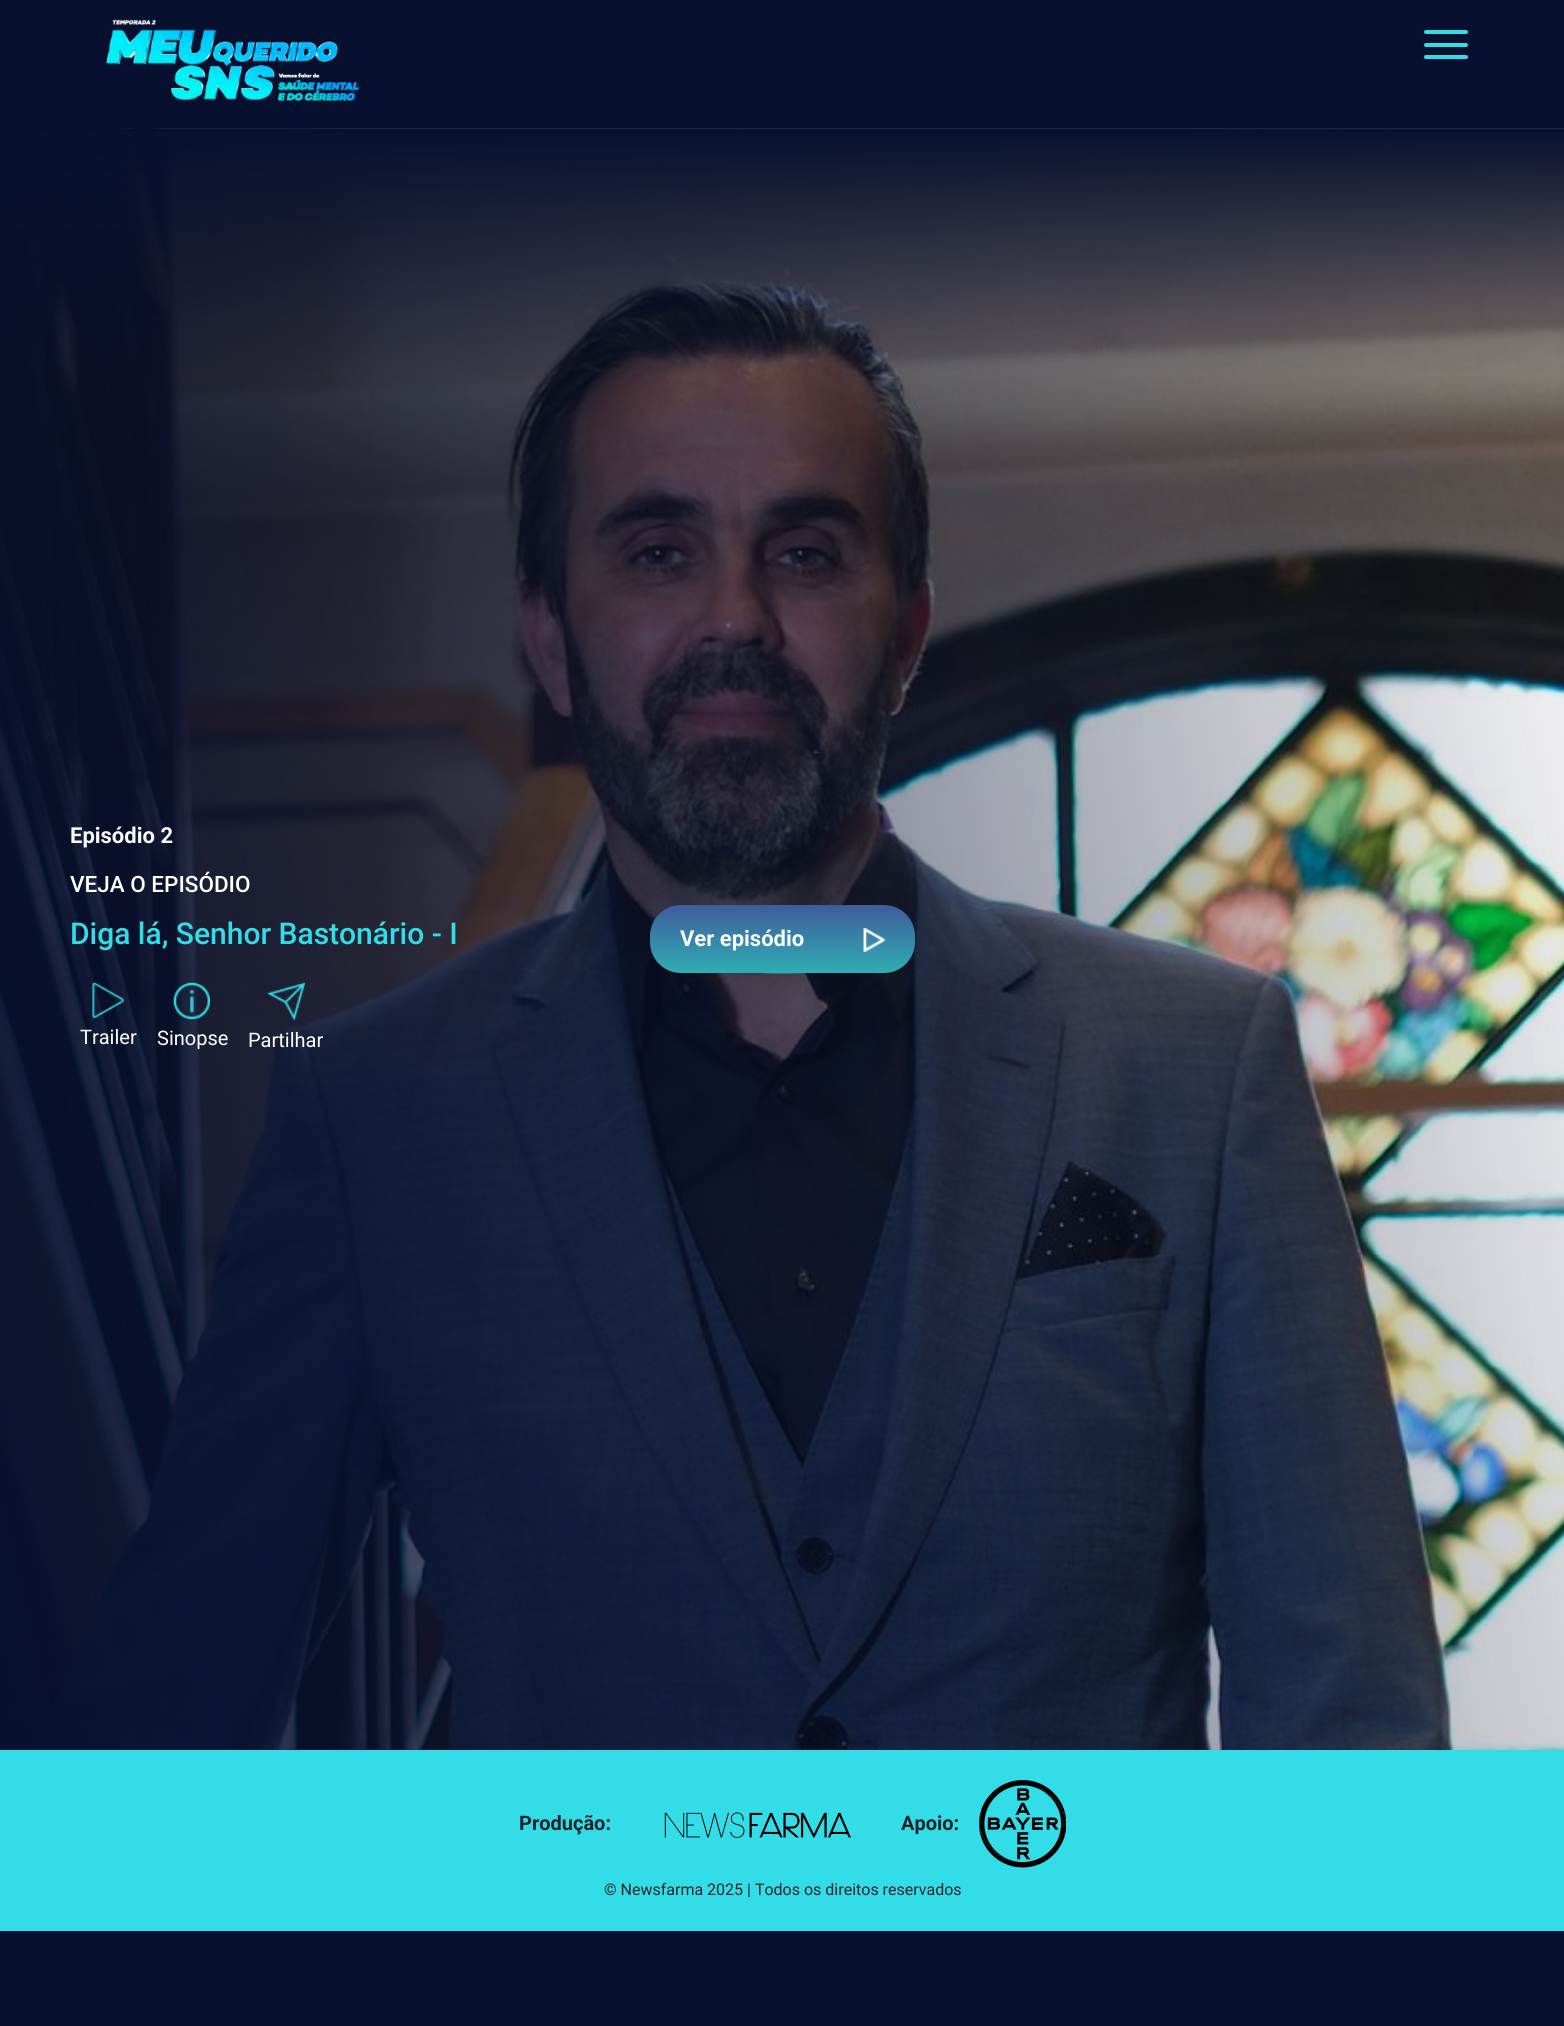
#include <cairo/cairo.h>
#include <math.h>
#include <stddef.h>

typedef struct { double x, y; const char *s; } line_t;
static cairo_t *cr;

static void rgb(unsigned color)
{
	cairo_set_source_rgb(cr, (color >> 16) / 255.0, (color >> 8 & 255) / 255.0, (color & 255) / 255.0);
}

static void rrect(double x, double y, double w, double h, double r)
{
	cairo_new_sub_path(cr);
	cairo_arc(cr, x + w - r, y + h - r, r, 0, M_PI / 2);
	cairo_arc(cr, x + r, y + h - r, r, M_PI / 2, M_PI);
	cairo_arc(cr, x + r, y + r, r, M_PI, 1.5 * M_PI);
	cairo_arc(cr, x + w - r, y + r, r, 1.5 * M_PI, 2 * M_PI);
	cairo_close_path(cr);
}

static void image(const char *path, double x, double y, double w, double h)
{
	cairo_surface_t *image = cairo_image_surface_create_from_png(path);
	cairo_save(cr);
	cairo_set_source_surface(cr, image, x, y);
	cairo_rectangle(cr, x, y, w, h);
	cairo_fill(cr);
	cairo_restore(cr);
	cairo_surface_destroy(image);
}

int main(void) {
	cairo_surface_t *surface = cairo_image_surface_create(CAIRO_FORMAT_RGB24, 1564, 2026);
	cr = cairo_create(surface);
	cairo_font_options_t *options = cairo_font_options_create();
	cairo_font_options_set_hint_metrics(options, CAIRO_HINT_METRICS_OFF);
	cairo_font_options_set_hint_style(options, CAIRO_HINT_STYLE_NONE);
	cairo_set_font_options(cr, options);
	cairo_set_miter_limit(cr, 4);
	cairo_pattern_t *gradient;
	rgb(0x07102f);
	cairo_paint(cr);
	image("img/1.png", 106, 19, 254, 82);
	rgb(0x32dde8);
	rrect(1424, 30, 44, 4, 2);
	cairo_fill(cr);
	rrect(1424, 43, 44, 4, 2);
	cairo_fill(cr);
	rrect(1424, 55, 44, 4, 2);
	cairo_fill(cr);
	image("img/5.png", 0, 128, 1564, 1622);
	image("img/2.png", 92, 982, 32, 36);
	image("img/3.png", 173, 982, 37, 38);
	image("img/4.png", 267, 982, 38, 39);
	gradient = cairo_pattern_create_linear(782, 906, 782, 973);
	cairo_pattern_add_color_stop_rgba(gradient, 0, 0.247, 0.361, 0.616, 1);
	cairo_pattern_add_color_stop_rgba(gradient, 1, 0.184, 0.682, 0.702, 1);
	cairo_set_source(cr, gradient);
	cairo_pattern_destroy(gradient);
	cairo_new_path(cr);
	cairo_move_to(cr, 782.5, 905.5);
	cairo_curve_to(cr, 855.5, 905.5, 915, 920.5, 915, 939.5);
	cairo_curve_to(cr, 915, 958.5, 855.5, 973.5, 782.5, 973.5);
	cairo_curve_to(cr, 709.5, 973.5, 650, 958.5, 650, 939.5);
	cairo_curve_to(cr, 650, 920.5, 709.5, 905.5, 782.5, 905.5);
	cairo_close_path(cr);
	cairo_fill(cr);
	rrect(650, 905, 265, 68, 31);
	cairo_fill(cr);
	image("img/6.png", 863, 928, 22, 24);
	rgb(0x32dde8);
	cairo_rectangle(cr, 0, 1750, 1564, 181);
	cairo_fill(cr);
	image("img/7.png", 664, 1812, 187, 26);
	image("img/8.png", 979, 1780, 87, 88);
	cairo_select_font_face(cr, "Roboto", CAIRO_FONT_SLANT_NORMAL, CAIRO_FONT_WEIGHT_BOLD);
	cairo_set_font_size(cr, 22);
	rgb(0xf8f9fa);
	cairo_move_to(cr, 70, 843);
	cairo_show_text(cr, "Episódio 2");
	cairo_select_font_face(cr, "Roboto Medium", CAIRO_FONT_SLANT_NORMAL, CAIRO_FONT_WEIGHT_NORMAL);
	cairo_set_font_size(cr, 22.5);
	rgb(0xffffff);
	cairo_move_to(cr, 70, 892);
	cairo_show_text(cr, "VEJA O EPISÓDIO");
	cairo_set_font_size(cr, 30);
	rgb(0x32dde8);
	cairo_move_to(cr, 70, 944);
	cairo_show_text(cr, "Diga lá, Senhor Bastonário - I");
	cairo_select_font_face(cr, "Roboto", CAIRO_FONT_SLANT_NORMAL, CAIRO_FONT_WEIGHT_NORMAL);
	cairo_set_font_size(cr, 20);
	rgb(0xffffff);
	{
		static const line_t items[] = {
			{80, 1044, "Trailer"},
			{157, 1045, "Sinopse"},
			{248, 1047, "Partilhar"},
		};
		for (size_t i = 0; i < sizeof items / sizeof *items; i++) {
			cairo_move_to(cr, items[i].x, items[i].y);
			cairo_show_text(cr, items[i].s);
		}
	}
	cairo_select_font_face(cr, "Roboto", CAIRO_FONT_SLANT_NORMAL, CAIRO_FONT_WEIGHT_BOLD);
	cairo_set_font_size(cr, 22);
	rgb(0xf8f9fa);
	cairo_move_to(cr, 680, 946);
	cairo_show_text(cr, "Ver episódio");
	cairo_set_font_size(cr, 20);
	rgb(0x212529);
	cairo_move_to(cr, 519, 1830);
	cairo_show_text(cr, "Produção:");
	cairo_move_to(cr, 901, 1830);
	cairo_show_text(cr, "Apoio:");
	cairo_select_font_face(cr, "Roboto", CAIRO_FONT_SLANT_NORMAL, CAIRO_FONT_WEIGHT_NORMAL);
	cairo_set_font_size(cr, 16);
	cairo_move_to(cr, 604, 1895);
	cairo_show_text(cr, "© Newsfarma 2025 | Todos os direitos reservados");
	cairo_surface_write_to_png(surface, "page.png");
	cairo_font_options_destroy(options);
	cairo_destroy(cr);
	cairo_surface_destroy(surface);
	return 0;
}
